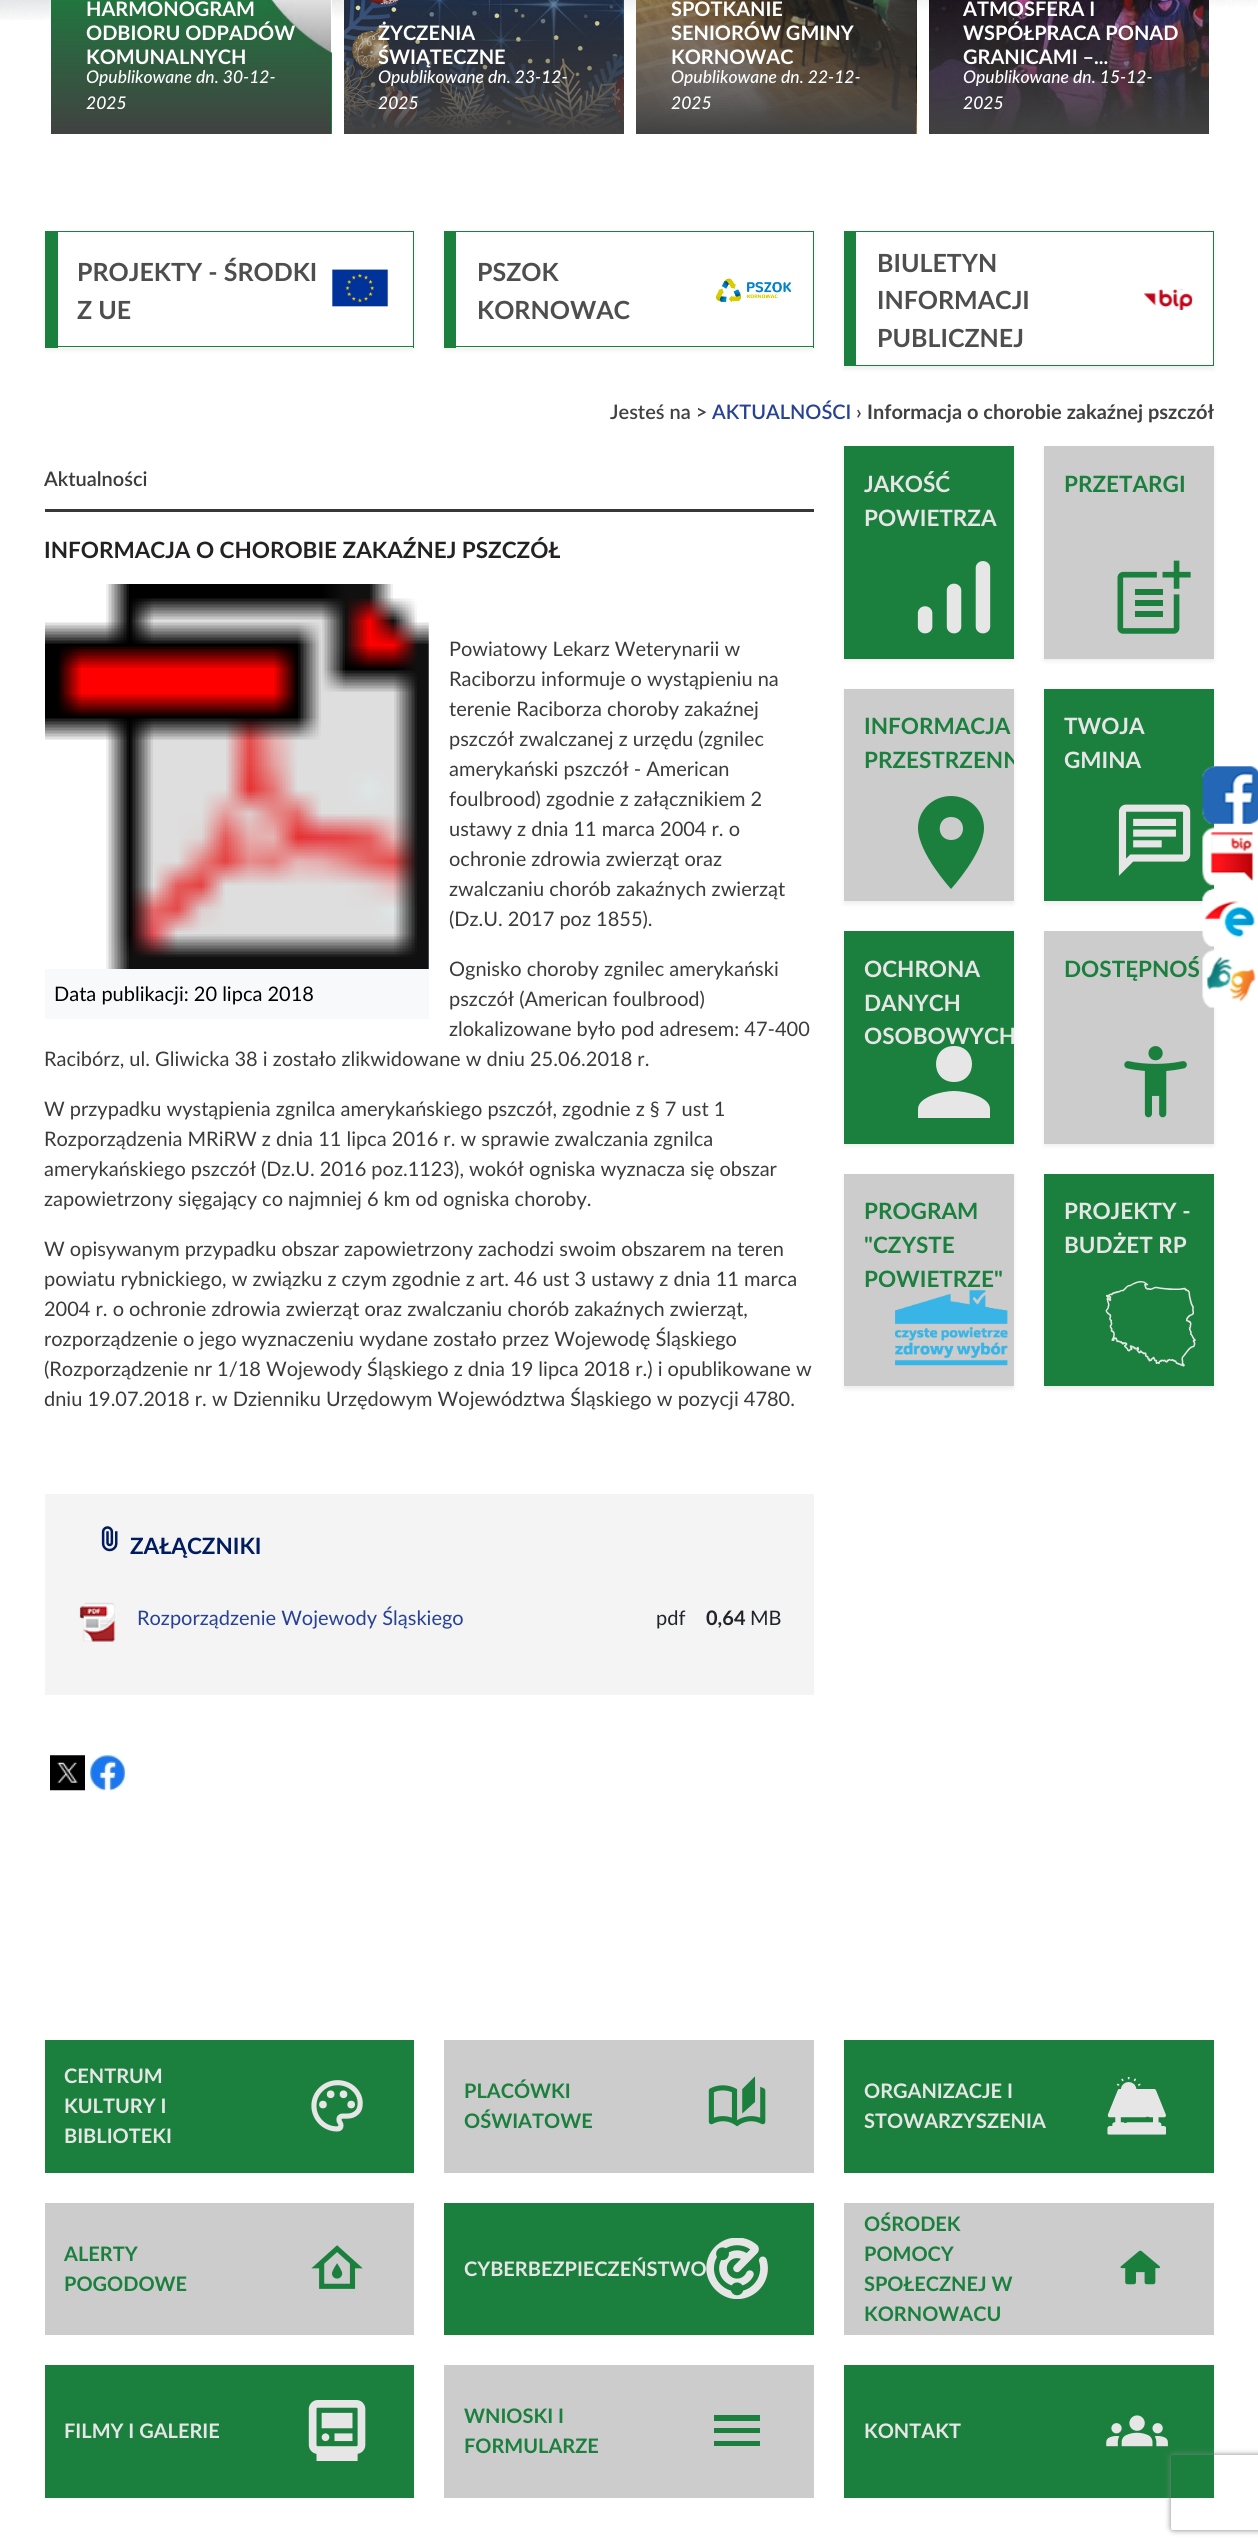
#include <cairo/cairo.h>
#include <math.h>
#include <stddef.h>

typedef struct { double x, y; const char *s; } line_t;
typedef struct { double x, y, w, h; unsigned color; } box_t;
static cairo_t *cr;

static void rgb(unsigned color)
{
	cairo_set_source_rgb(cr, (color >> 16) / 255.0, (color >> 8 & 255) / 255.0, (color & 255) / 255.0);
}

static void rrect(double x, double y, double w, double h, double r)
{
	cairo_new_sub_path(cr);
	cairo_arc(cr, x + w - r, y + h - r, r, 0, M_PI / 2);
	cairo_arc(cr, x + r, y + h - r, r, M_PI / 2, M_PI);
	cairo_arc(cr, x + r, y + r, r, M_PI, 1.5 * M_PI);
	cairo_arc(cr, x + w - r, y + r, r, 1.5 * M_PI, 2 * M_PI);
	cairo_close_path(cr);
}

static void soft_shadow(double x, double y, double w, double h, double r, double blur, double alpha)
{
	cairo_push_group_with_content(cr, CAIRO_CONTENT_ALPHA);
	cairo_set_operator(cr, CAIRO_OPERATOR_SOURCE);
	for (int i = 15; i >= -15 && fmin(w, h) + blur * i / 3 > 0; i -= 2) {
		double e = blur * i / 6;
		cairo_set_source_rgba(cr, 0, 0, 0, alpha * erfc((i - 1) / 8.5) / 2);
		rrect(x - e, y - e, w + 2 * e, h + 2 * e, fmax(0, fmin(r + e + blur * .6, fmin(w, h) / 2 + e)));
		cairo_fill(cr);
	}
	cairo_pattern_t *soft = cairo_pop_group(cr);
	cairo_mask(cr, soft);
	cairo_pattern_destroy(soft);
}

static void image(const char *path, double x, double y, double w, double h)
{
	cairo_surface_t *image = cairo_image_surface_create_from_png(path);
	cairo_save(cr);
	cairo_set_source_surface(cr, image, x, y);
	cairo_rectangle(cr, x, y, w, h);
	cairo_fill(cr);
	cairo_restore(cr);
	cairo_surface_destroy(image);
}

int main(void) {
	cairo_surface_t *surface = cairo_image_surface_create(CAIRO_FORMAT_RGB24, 1258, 2547);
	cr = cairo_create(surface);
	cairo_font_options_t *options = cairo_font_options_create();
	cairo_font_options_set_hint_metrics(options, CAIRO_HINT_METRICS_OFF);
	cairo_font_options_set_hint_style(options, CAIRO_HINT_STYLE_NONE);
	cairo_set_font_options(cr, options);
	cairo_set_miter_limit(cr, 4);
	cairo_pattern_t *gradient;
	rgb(0xffffff);
	cairo_paint(cr);
	image("img/1.png", 0, 0, 1258, 20);
	image("img/2.png", 51, 0, 281, 134);
	gradient = cairo_pattern_create_linear(191, 134, 191, -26);
	cairo_pattern_add_color_stop_rgba(gradient, 0, 0.255, 0.255, 0.255, 1);
	cairo_pattern_add_color_stop_rgba(gradient, 1, 0.255, 0.255, 0.255, 0);
	cairo_set_source(cr, gradient);
	cairo_pattern_destroy(gradient);
	cairo_rectangle(cr, 51, 0, 280, 134);
	cairo_fill(cr);
	image("img/3.png", 344, 0, 280, 134);
	image("img/4.png", 636, 0, 281, 134);
	image("img/5.png", 929, 0, 280, 134);
	cairo_save(cr);
	cairo_set_fill_rule(cr, CAIRO_FILL_RULE_EVEN_ODD);
	cairo_new_path(cr);
	cairo_move_to(cr, 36, 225);
	cairo_line_to(cr, 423, 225);
	cairo_line_to(cr, 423, 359);
	cairo_line_to(cr, 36, 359);
	cairo_close_path(cr);
	cairo_move_to(cr, 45, 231);
	cairo_line_to(cr, 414, 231);
	cairo_line_to(cr, 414, 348);
	cairo_line_to(cr, 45, 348);
	cairo_close_path(cr);
	cairo_clip(cr);
	rgb(0x000000);
	soft_shadow(45, 234, 369, 116, 0, 2.5, 0.07);
	cairo_restore(cr);
	{
		static const box_t items[] = {
			{58, 231, 356, 1, 0x1b803d},
			{413, 231, 1, 117, 0x1b803d},
			{58, 346, 356, 1, 0x1b803d},
			{45, 231, 13, 117, 0x1b803d},
		};
		for (size_t i = 0; i < sizeof items / sizeof *items; i++) {
			rgb(items[i].color);
			cairo_rectangle(cr, items[i].x, items[i].y, items[i].w, items[i].h);
			cairo_fill(cr);
		}
	}
	image("img/6.png", 332, 269, 57, 38);
	cairo_save(cr);
	cairo_set_fill_rule(cr, CAIRO_FILL_RULE_EVEN_ODD);
	cairo_new_path(cr);
	cairo_move_to(cr, 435, 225);
	cairo_line_to(cr, 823, 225);
	cairo_line_to(cr, 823, 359);
	cairo_line_to(cr, 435, 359);
	cairo_close_path(cr);
	cairo_move_to(cr, 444, 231);
	cairo_line_to(cr, 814, 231);
	cairo_line_to(cr, 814, 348);
	cairo_line_to(cr, 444, 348);
	cairo_close_path(cr);
	cairo_clip(cr);
	rgb(0x000000);
	soft_shadow(444, 234, 370, 116, 0, 2.5, 0.07);
	cairo_restore(cr);
	{
		static const box_t items[] = {
			{456, 231, 358, 1, 0x1b803d},
			{813, 231, 1, 117, 0x1b803d},
			{456, 346, 358, 1, 0x1b803d},
			{444, 231, 12, 117, 0x1b803d},
		};
		for (size_t i = 0; i < sizeof items / sizeof *items; i++) {
			rgb(items[i].color);
			cairo_rectangle(cr, items[i].x, items[i].y, items[i].w, items[i].h);
			cairo_fill(cr);
		}
	}
	image("img/7.png", 715, 278, 77, 24);
	cairo_save(cr);
	cairo_set_fill_rule(cr, CAIRO_FILL_RULE_EVEN_ODD);
	cairo_new_path(cr);
	cairo_move_to(cr, 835, 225);
	cairo_line_to(cr, 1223, 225);
	cairo_line_to(cr, 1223, 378);
	cairo_line_to(cr, 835, 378);
	cairo_close_path(cr);
	cairo_move_to(cr, 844, 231);
	cairo_line_to(cr, 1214, 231);
	cairo_line_to(cr, 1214, 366);
	cairo_line_to(cr, 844, 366);
	cairo_close_path(cr);
	cairo_clip(cr);
	rgb(0x000000);
	soft_shadow(844, 234, 370, 135, 0, 2.5, 0.07);
	cairo_restore(cr);
	{
		static const box_t items[] = {
			{856, 231, 358, 1, 0x1b803d},
			{1213, 231, 1, 135, 0x1b803d},
			{856, 365, 358, 1, 0x1b803d},
			{844, 231, 12, 135, 0x1b803d},
		};
		for (size_t i = 0; i < sizeof items / sizeof *items; i++) {
			rgb(items[i].color);
			cairo_rectangle(cr, items[i].x, items[i].y, items[i].w, items[i].h);
			cairo_fill(cr);
		}
	}
	image("img/8.png", 1144, 289, 49, 21);
	rgb(0x373737);
	cairo_rectangle(cr, 45, 509, 769, 3);
	cairo_fill(cr);
	image("img/9.png", 45, 584, 384, 385);
	rgb(0xf8f9fa);
	cairo_rectangle(cr, 45, 969, 384, 50);
	cairo_fill(cr);
	rgb(0xf4f4f4);
	cairo_rectangle(cr, 45, 1494, 769, 201);
	cairo_fill(cr);
	image("img/10.png", 101, 1526, 17, 26);
	image("img/11.png", 79, 1602, 37, 40);
	image("img/12.png", 50, 1755, 35, 36);
	image("img/13.png", 90, 1755, 35, 36);
	rgb(0x000000);
	soft_shadow(844, 449, 170, 212, 0, 2.5, 0.07);
	rgb(0x1b803d);
	cairo_rectangle(cr, 844, 446, 170, 213);
	cairo_fill(cr);
	image("img/14.png", 917, 561, 74, 73);
	rgb(0x000000);
	soft_shadow(1044, 449, 170, 212, 0, 2.5, 0.07);
	rgb(0xcccccc);
	cairo_rectangle(cr, 1044, 446, 170, 213);
	cairo_fill(cr);
	image("img/15.png", 1117, 560, 74, 74);
	rgb(0x000000);
	soft_shadow(844, 691, 170, 213, 0, 2.5, 0.07);
	rgb(0xcccccc);
	cairo_rectangle(cr, 844, 689, 170, 212);
	cairo_fill(cr);
	rgb(0x1b803d);
	cairo_new_path(cr);
	cairo_move_to(cr, 951, 796);
	cairo_curve_to(cr, 933, 796, 918, 810, 918, 828);
	cairo_curve_to(cr, 918, 853, 951, 889, 951, 889);
	cairo_curve_to(cr, 951, 889, 984, 853, 984, 828);
	cairo_curve_to(cr, 984, 810, 969, 796, 951, 796);
	cairo_close_path(cr);
	cairo_move_to(cr, 951, 840);
	cairo_curve_to(cr, 936, 840, 936, 817, 951, 817);
	cairo_curve_to(cr, 967, 817, 967, 840, 951, 840);
	cairo_close_path(cr);
	cairo_fill(cr);
	rgb(0x000000);
	soft_shadow(1044, 691, 170, 213, 0, 2.5, 0.07);
	rgb(0x1b803d);
	cairo_rectangle(cr, 1044, 689, 170, 212);
	cairo_fill(cr);
	image("img/16.png", 1118, 804, 73, 72);
	rgb(0x000000);
	soft_shadow(844, 934, 170, 212, 0, 2.5, 0.07);
	rgb(0x1b803d);
	cairo_rectangle(cr, 844, 931, 170, 213);
	cairo_fill(cr);
	rgb(0xe6e6e6);
	cairo_new_path(cr);
	cairo_move_to(cr, 954, 1082);
	cairo_curve_to(cr, 978, 1082, 978, 1046, 954, 1046);
	cairo_curve_to(cr, 930, 1046, 930, 1082, 954, 1082);
	cairo_close_path(cr);
	cairo_move_to(cr, 954, 1091);
	cairo_curve_to(cr, 942, 1091, 918, 1097, 918, 1109);
	cairo_line_to(cr, 918, 1118);
	cairo_line_to(cr, 990, 1118);
	cairo_line_to(cr, 990, 1109);
	cairo_curve_to(cr, 990, 1097, 966, 1091, 954, 1091);
	cairo_close_path(cr);
	cairo_fill(cr);
	rgb(0x000000);
	soft_shadow(1044, 934, 170, 212, 0, 2.5, 0.07);
	rgb(0xcccccc);
	cairo_rectangle(cr, 1044, 931, 170, 213);
	cairo_fill(cr);
	image("img/17.png", 1124, 1046, 63, 72);
	rgb(0x000000);
	soft_shadow(844, 1176, 170, 213, 0, 2.5, 0.07);
	rgb(0xcccccc);
	cairo_rectangle(cr, 844, 1174, 170, 212);
	cairo_fill(cr);
	image("img/18.png", 895, 1290, 113, 76);
	rgb(0x000000);
	soft_shadow(1044, 1176, 170, 213, 0, 2.5, 0.07);
	rgb(0x1b803d);
	cairo_rectangle(cr, 1044, 1174, 170, 212);
	cairo_fill(cr);
	image("img/19.png", 1105, 1281, 91, 86);
	cairo_rectangle(cr, 45, 2040, 369, 133);
	cairo_fill(cr);
	image("img/20.png", 311, 2080, 52, 52);
	rgb(0xcccccc);
	cairo_rectangle(cr, 444, 2040, 370, 133);
	cairo_fill(cr);
	image("img/21.png", 708, 2076, 58, 51);
	rgb(0x1b803d);
	cairo_rectangle(cr, 844, 2040, 370, 133);
	cairo_fill(cr);
	image("img/22.png", 1107, 2076, 59, 59);
	rgb(0xcccccc);
	cairo_rectangle(cr, 45, 2203, 369, 132);
	cairo_fill(cr);
	image("img/23.png", 311, 2245, 52, 44);
	rgb(0x1b803d);
	cairo_rectangle(cr, 444, 2203, 370, 132);
	cairo_fill(cr);
	rgb(0xcccccc);
	cairo_rectangle(cr, 844, 2203, 370, 132);
	cairo_fill(cr);
	image("img/25.png", 1120, 2250, 41, 35);
	rgb(0x1b803d);
	cairo_rectangle(cr, 45, 2365, 369, 133);
	cairo_fill(cr);
	image("img/26.png", 308, 2400, 58, 61);
	rgb(0xcccccc);
	cairo_rectangle(cr, 444, 2365, 370, 133);
	cairo_fill(cr);
	rgb(0x1b803d);
	cairo_new_path(cr);
	cairo_move_to(cr, 714, 2446);
	cairo_line_to(cr, 714, 2441);
	cairo_line_to(cr, 760, 2441);
	cairo_line_to(cr, 760, 2446);
	cairo_close_path(cr);
	cairo_move_to(cr, 714, 2433);
	cairo_line_to(cr, 714, 2428);
	cairo_line_to(cr, 760, 2428);
	cairo_line_to(cr, 760, 2433);
	cairo_close_path(cr);
	cairo_move_to(cr, 714, 2421);
	cairo_line_to(cr, 714, 2415);
	cairo_line_to(cr, 760, 2415);
	cairo_line_to(cr, 760, 2421);
	cairo_close_path(cr);
	cairo_fill(cr);
	cairo_rectangle(cr, 844, 2365, 370, 133);
	cairo_fill(cr);
	image("img/27.png", 1106, 2415, 62, 32);
	image("img/28.png", 1202, 766, 56, 58);
	image("img/29.png", 1202, 827, 52, 59);
	image("img/30.png", 1202, 888, 54, 59);
	image("img/31.png", 1202, 949, 54, 59);
	cairo_save(cr);
	cairo_set_fill_rule(cr, CAIRO_FILL_RULE_EVEN_ODD);
	cairo_new_path(cr);
	cairo_move_to(cr, 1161, 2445);
	cairo_line_to(cr, 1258, 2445);
	cairo_line_to(cr, 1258, 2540);
	cairo_line_to(cr, 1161, 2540);
	cairo_close_path(cr);
	cairo_move_to(cr, 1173.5, 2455);
	cairo_line_to(cr, 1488.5, 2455);
	cairo_curve_to(cr, 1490, 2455, 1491, 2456, 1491, 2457.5);
	cairo_line_to(cr, 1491, 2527.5);
	cairo_curve_to(cr, 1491, 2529, 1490, 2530, 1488.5, 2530);
	cairo_line_to(cr, 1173.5, 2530);
	cairo_curve_to(cr, 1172, 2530, 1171, 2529, 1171, 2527.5);
	cairo_line_to(cr, 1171, 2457.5);
	cairo_curve_to(cr, 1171, 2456, 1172, 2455, 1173.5, 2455);
	cairo_close_path(cr);
	cairo_clip(cr);
	rgb(0x808080);
	soft_shadow(1171, 2455, 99, 75, 2.5, 3, 1);
	cairo_restore(cr);
	cairo_select_font_face(cr, "Lato", CAIRO_FONT_SLANT_NORMAL, CAIRO_FONT_WEIGHT_BOLD);
	cairo_set_font_size(cr, 20);
	rgb(0xffffff);
	{
		static const line_t items[] = {
			{86, 16, "HARMONOGRAM"},
			{86, 40, "ODBIORU ODPADÓW"},
			{86, 64, "KOMUNALNYCH"},
		};
		for (size_t i = 0; i < sizeof items / sizeof *items; i++) {
			cairo_move_to(cr, items[i].x, items[i].y);
			cairo_show_text(cr, items[i].s);
		}
	}
	cairo_select_font_face(cr, "Lato Medium", CAIRO_FONT_SLANT_ITALIC, CAIRO_FONT_WEIGHT_NORMAL);
	cairo_set_font_size(cr, 17.5);
	cairo_move_to(cr, 86, 83);
	cairo_show_text(cr, "Opublikowane dn. 30-12-");
	cairo_move_to(cr, 86, 109);
	cairo_show_text(cr, "2025");
	cairo_select_font_face(cr, "Lato", CAIRO_FONT_SLANT_NORMAL, CAIRO_FONT_WEIGHT_BOLD);
	cairo_set_font_size(cr, 20);
	cairo_move_to(cr, 378, 40);
	cairo_show_text(cr, "ŻYCZENIA");
	cairo_move_to(cr, 378, 64);
	cairo_show_text(cr, "ŚWIĄTECZNE");
	cairo_select_font_face(cr, "Lato Medium", CAIRO_FONT_SLANT_ITALIC, CAIRO_FONT_WEIGHT_NORMAL);
	cairo_set_font_size(cr, 17.5);
	cairo_move_to(cr, 378, 83);
	cairo_show_text(cr, "Opublikowane dn. 23-12-");
	cairo_move_to(cr, 378, 109);
	cairo_show_text(cr, "2025");
	cairo_select_font_face(cr, "Lato", CAIRO_FONT_SLANT_NORMAL, CAIRO_FONT_WEIGHT_BOLD);
	cairo_set_font_size(cr, 20);
	{
		static const line_t items[] = {
			{671, 16, "SPOTKANIE"},
			{671, 40, "SENIORÓW GMINY"},
			{671, 64, "KORNOWAC"},
		};
		for (size_t i = 0; i < sizeof items / sizeof *items; i++) {
			cairo_move_to(cr, items[i].x, items[i].y);
			cairo_show_text(cr, items[i].s);
		}
	}
	cairo_select_font_face(cr, "Lato Medium", CAIRO_FONT_SLANT_ITALIC, CAIRO_FONT_WEIGHT_NORMAL);
	cairo_set_font_size(cr, 17.5);
	cairo_move_to(cr, 671, 83);
	cairo_show_text(cr, "Opublikowane dn. 22-12-");
	cairo_move_to(cr, 671, 109);
	cairo_show_text(cr, "2025");
	cairo_select_font_face(cr, "Lato", CAIRO_FONT_SLANT_NORMAL, CAIRO_FONT_WEIGHT_BOLD);
	cairo_set_font_size(cr, 20);
	{
		static const line_t items[] = {
			{963, 16, "ATMOSFERA I"},
			{963, 40, "WSPÓŁPRACA PONAD"},
			{963, 64, "GRANICAMI –..."},
		};
		for (size_t i = 0; i < sizeof items / sizeof *items; i++) {
			cairo_move_to(cr, items[i].x, items[i].y);
			cairo_show_text(cr, items[i].s);
		}
	}
	cairo_select_font_face(cr, "Lato Medium", CAIRO_FONT_SLANT_ITALIC, CAIRO_FONT_WEIGHT_NORMAL);
	cairo_set_font_size(cr, 17.5);
	cairo_move_to(cr, 963, 83);
	cairo_show_text(cr, "Opublikowane dn. 15-12-");
	cairo_move_to(cr, 963, 109);
	cairo_show_text(cr, "2025");
	cairo_select_font_face(cr, "Lato", CAIRO_FONT_SLANT_NORMAL, CAIRO_FONT_WEIGHT_BOLD);
	cairo_set_font_size(cr, 25);
	rgb(0x4e4e4e);
	{
		static const line_t items[] = {
			{77, 281, "PROJEKTY - ŚRODKI"},
			{77, 319, "Z UE"},
			{477, 281, "PSZOK"},
			{477, 319, "KORNOWAC"},
			{877, 272, "BIULETYN"},
			{877, 309, "INFORMACJI"},
			{877, 347, "PUBLICZNEJ"},
		};
		for (size_t i = 0; i < sizeof items / sizeof *items; i++) {
			cairo_move_to(cr, items[i].x, items[i].y);
			cairo_show_text(cr, items[i].s);
		}
	}
	cairo_select_font_face(cr, "Lato SemiBold", CAIRO_FONT_SLANT_NORMAL, CAIRO_FONT_WEIGHT_NORMAL);
	cairo_set_font_size(cr, 20);
	rgb(0x414141);
	cairo_move_to(cr, 610, 419);
	cairo_show_text(cr, "Jesteś na >");
	rgb(0x274295);
	cairo_move_to(cr, 712, 419);
	cairo_show_text(cr, "AKTUALNOŚCI");
	rgb(0x414141);
	cairo_move_to(cr, 856, 419);
	cairo_show_text(cr, "›");
	cairo_select_font_face(cr, "Lato", CAIRO_FONT_SLANT_NORMAL, CAIRO_FONT_WEIGHT_BOLD);
	cairo_move_to(cr, 867, 419);
	cairo_show_text(cr, "Informacja o chorobie zakaźnej pszczół");
	cairo_select_font_face(cr, "Lato SemiBold", CAIRO_FONT_SLANT_NORMAL, CAIRO_FONT_WEIGHT_NORMAL);
	rgb(0x3b3b3b);
	cairo_move_to(cr, 44, 486);
	cairo_show_text(cr, "Aktualności");
	cairo_select_font_face(cr, "Lato", CAIRO_FONT_SLANT_NORMAL, CAIRO_FONT_WEIGHT_BOLD);
	cairo_set_font_size(cr, 22.5);
	rgb(0x232121);
	cairo_move_to(cr, 44, 558);
	cairo_show_text(cr, "INFORMACJA O CHOROBIE ZAKAŹNEJ PSZCZÓŁ");
	cairo_select_font_face(cr, "Lato", CAIRO_FONT_SLANT_NORMAL, CAIRO_FONT_WEIGHT_NORMAL);
	cairo_set_font_size(cr, 20);
	rgb(0x3b3b3b);
	{
		static const line_t items[] = {
			{449, 656, "Powiatowy Lekarz Weterynarii w"},
			{449, 686, "Raciborzu informuje o wystąpieniu na"},
			{449, 716, "terenie Raciborza choroby zakaźnej"},
			{449, 746, "pszczół zwalczanej z urzędu (zgnilec"},
			{449, 776, "amerykański pszczół - American"},
			{449, 806, "foulbrood) zgodnie z załącznikiem 2"},
			{449, 836, "ustawy z dnia 11 marca 2004 r. o"},
			{449, 866, "ochronie zdrowia zwierząt oraz"},
			{449, 896, "zwalczaniu chorób zakaźnych zwierząt"},
			{449, 926, "(Dz.U. 2017 poz 1855)."},
			{449, 976, "Ognisko choroby zgnilec amerykański"},
			{449, 1006, "pszczół (American foulbrood)"},
			{449, 1036, "zlokalizowane było pod adresem: 47-400"},
			{44, 1066, "Racibórz, ul. Gliwicka 38 i zostało zlikwidowane w dniu 25.06.2018 r."},
			{44, 1116, "W przypadku wystąpienia zgnilca amerykańskiego pszczół, zgodnie z § 7 ust 1"},
			{44, 1146, "Rozporządzenia MRiRW z dnia 11 lipca 2016 r. w sprawie zwalczania zgnilca"},
			{44, 1176, "amerykańskiego pszczół (Dz.U. 2016 poz.1123), wokół ogniska wyznacza się obszar"},
			{44, 1206, "zapowietrzony sięgający co najmniej 6 km od ogniska choroby."},
			{44, 1256, "W opisywanym przypadku obszar zapowietrzony zachodzi swoim obszarem na teren"},
			{44, 1286, "powiatu rybnickiego, w związku z czym zgodnie z art. 46 ust 3 ustawy z dnia 11 marca"},
			{44, 1316, "2004 r. o ochronie zdrowia zwierząt oraz zwalczaniu chorób zakaźnych zwierząt,"},
			{44, 1346, "rozporządzenie o jego wyznaczeniu wydane zostało przez Wojewodę Śląskiego"},
			{44, 1376, "(Rozporządzenie nr 1/18 Wojewody Śląskiego z dnia 19 lipca 2018 r.) i opublikowane w"},
			{44, 1406, "dniu 19.07.2018 r. w Dzienniku Urzędowym Województwa Śląskiego w pozycji 4780."},
		};
		for (size_t i = 0; i < sizeof items / sizeof *items; i++) {
			cairo_move_to(cr, items[i].x, items[i].y);
			cairo_show_text(cr, items[i].s);
		}
	}
	rgb(0x000000);
	cairo_move_to(cr, 54, 1001);
	cairo_show_text(cr, "Data publikacji: 20 lipca 2018");
	cairo_select_font_face(cr, "Lato", CAIRO_FONT_SLANT_NORMAL, CAIRO_FONT_WEIGHT_BOLD);
	cairo_set_font_size(cr, 22.5);
	rgb(0x001b60);
	cairo_move_to(cr, 130, 1554);
	cairo_show_text(cr, "ZAŁĄCZNIKI");
	cairo_select_font_face(cr, "Lato", CAIRO_FONT_SLANT_NORMAL, CAIRO_FONT_WEIGHT_NORMAL);
	cairo_set_font_size(cr, 20);
	rgb(0x274295);
	cairo_move_to(cr, 137, 1625);
	cairo_show_text(cr, "Rozporządzenie Wojewody Śląskiego");
	rgb(0x212529);
	cairo_move_to(cr, 656, 1625);
	cairo_show_text(cr, "pdf");
	cairo_select_font_face(cr, "Lato", CAIRO_FONT_SLANT_NORMAL, CAIRO_FONT_WEIGHT_BOLD);
	cairo_move_to(cr, 706, 1625);
	cairo_show_text(cr, "0,64");
	cairo_select_font_face(cr, "Lato", CAIRO_FONT_SLANT_NORMAL, CAIRO_FONT_WEIGHT_NORMAL);
	cairo_move_to(cr, 750, 1625);
	cairo_show_text(cr, "MB");
	cairo_select_font_face(cr, "Lato", CAIRO_FONT_SLANT_NORMAL, CAIRO_FONT_WEIGHT_BOLD);
	cairo_set_font_size(cr, 22.5);
	rgb(0xe6e6e6);
	cairo_move_to(cr, 864, 492);
	cairo_show_text(cr, "JAKOŚĆ");
	cairo_move_to(cr, 864, 526);
	cairo_show_text(cr, "POWIETRZA");
	rgb(0x1b803d);
	cairo_move_to(cr, 1064, 492);
	cairo_show_text(cr, "PRZETARGI");
	cairo_move_to(cr, 864, 734);
	cairo_show_text(cr, "INFORMACJA");
	cairo_save(cr);
	cairo_rectangle(cr, 844, 689, 170, 212);
	cairo_clip(cr);
	cairo_move_to(cr, 864, 768);
	cairo_show_text(cr, "PRZESTRZENN");
	cairo_restore(cr);
	rgb(0xe6e6e6);
	{
		static const line_t items[] = {
			{1064, 734, "TWOJA"},
			{1064, 768, "GMINA"},
			{864, 977, "OCHRONA"},
			{864, 1011, "DANYCH"},
		};
		for (size_t i = 0; i < sizeof items / sizeof *items; i++) {
			cairo_move_to(cr, items[i].x, items[i].y);
			cairo_show_text(cr, items[i].s);
		}
	}
	cairo_save(cr);
	cairo_rectangle(cr, 844, 931, 170, 213);
	cairo_clip(cr);
	cairo_move_to(cr, 864, 1044);
	cairo_show_text(cr, "OSOBOWYCH");
	cairo_restore(cr);
	rgb(0x1b803d);
	{
		static const line_t items[] = {
			{1064, 977, "DOSTĘPNOŚ"},
			{864, 1219, "PROGRAM"},
			{864, 1253, "\"CZYSTE"},
			{864, 1287, "POWIETRZE\""},
		};
		for (size_t i = 0; i < sizeof items / sizeof *items; i++) {
			cairo_move_to(cr, items[i].x, items[i].y);
			cairo_show_text(cr, items[i].s);
		}
	}
	rgb(0xe6e6e6);
	cairo_move_to(cr, 1064, 1219);
	cairo_show_text(cr, "PROJEKTY -");
	cairo_move_to(cr, 1064, 1253);
	cairo_show_text(cr, "BUDŻET RP");
	cairo_set_font_size(cr, 20);
	{
		static const line_t items[] = {
			{64, 2083, "CENTRUM"},
			{64, 2113, "KULTURY I"},
			{64, 2143, "BIBLIOTEKI"},
		};
		for (size_t i = 0; i < sizeof items / sizeof *items; i++) {
			cairo_move_to(cr, items[i].x, items[i].y);
			cairo_show_text(cr, items[i].s);
		}
	}
	rgb(0x1b803d);
	cairo_move_to(cr, 464, 2098);
	cairo_show_text(cr, "PLACÓWKI");
	cairo_move_to(cr, 464, 2128);
	cairo_show_text(cr, "OŚWIATOWE");
	rgb(0xe6e6e6);
	cairo_move_to(cr, 864, 2098);
	cairo_show_text(cr, "ORGANIZACJE I");
	cairo_move_to(cr, 864, 2128);
	cairo_show_text(cr, "STOWARZYSZENIA");
	rgb(0x1b803d);
	cairo_move_to(cr, 64, 2261);
	cairo_show_text(cr, "ALERTY");
	cairo_move_to(cr, 64, 2291);
	cairo_show_text(cr, "POGODOWE");
	rgb(0xe6e6e6);
	cairo_move_to(cr, 464, 2276);
	cairo_show_text(cr, "CYBERBEZPIECZEŃSTWO");
	image("img/24.png", 706, 2238, 62, 61);
	rgb(0x1b803d);
	{
		static const line_t items[] = {
			{864, 2231, "OŚRODEK"},
			{864, 2261, "POMOCY"},
			{864, 2291, "SPOŁECZNEJ W"},
			{864, 2321, "KORNOWACU"},
		};
		for (size_t i = 0; i < sizeof items / sizeof *items; i++) {
			cairo_move_to(cr, items[i].x, items[i].y);
			cairo_show_text(cr, items[i].s);
		}
	}
	rgb(0xe6e6e6);
	cairo_move_to(cr, 64, 2438);
	cairo_show_text(cr, "FILMY I GALERIE");
	rgb(0x1b803d);
	cairo_move_to(cr, 464, 2423);
	cairo_show_text(cr, "WNIOSKI I");
	cairo_move_to(cr, 464, 2453);
	cairo_show_text(cr, "FORMULARZE");
	rgb(0xe6e6e6);
	cairo_move_to(cr, 864, 2438);
	cairo_show_text(cr, "KONTAKT");
	cairo_surface_write_to_png(surface, "page.png");
	cairo_font_options_destroy(options);
	cairo_destroy(cr);
	cairo_surface_destroy(surface);
	return 0;
}
